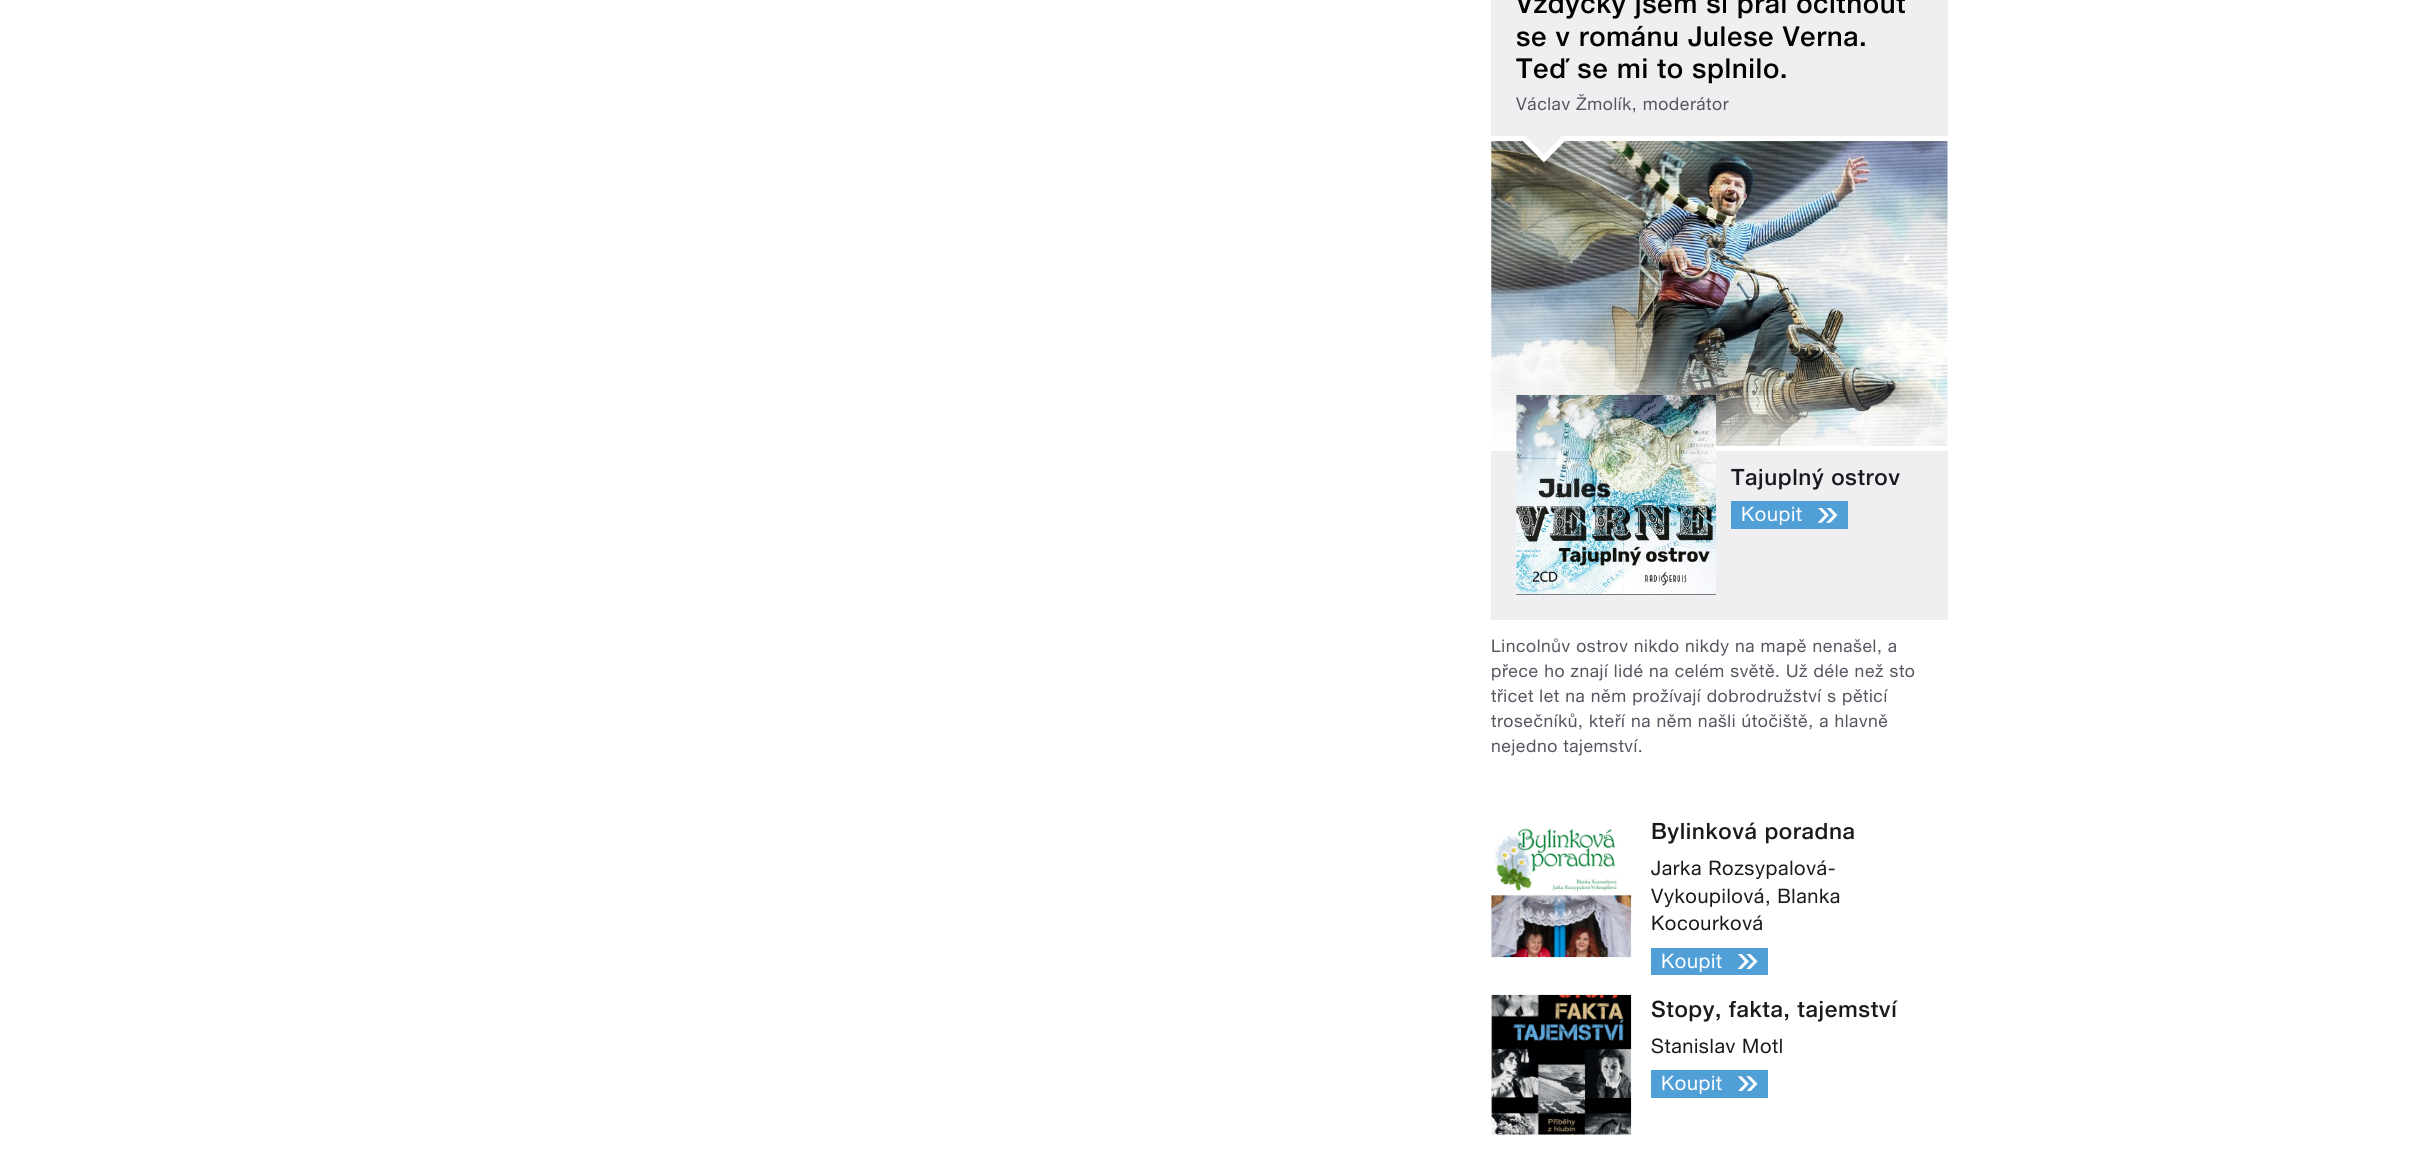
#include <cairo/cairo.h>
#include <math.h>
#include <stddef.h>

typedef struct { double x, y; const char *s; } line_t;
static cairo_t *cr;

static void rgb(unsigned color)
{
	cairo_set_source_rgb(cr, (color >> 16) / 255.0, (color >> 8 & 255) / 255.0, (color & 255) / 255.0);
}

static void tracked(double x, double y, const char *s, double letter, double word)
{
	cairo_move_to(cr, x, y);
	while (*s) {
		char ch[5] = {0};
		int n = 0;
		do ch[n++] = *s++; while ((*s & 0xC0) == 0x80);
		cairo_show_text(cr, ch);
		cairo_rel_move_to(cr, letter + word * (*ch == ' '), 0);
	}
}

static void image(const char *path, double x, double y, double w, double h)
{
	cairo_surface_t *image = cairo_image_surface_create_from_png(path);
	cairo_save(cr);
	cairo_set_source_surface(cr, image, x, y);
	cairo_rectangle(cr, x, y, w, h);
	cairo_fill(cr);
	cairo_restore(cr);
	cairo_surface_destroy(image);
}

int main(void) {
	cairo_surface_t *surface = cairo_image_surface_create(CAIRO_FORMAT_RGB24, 2431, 1152);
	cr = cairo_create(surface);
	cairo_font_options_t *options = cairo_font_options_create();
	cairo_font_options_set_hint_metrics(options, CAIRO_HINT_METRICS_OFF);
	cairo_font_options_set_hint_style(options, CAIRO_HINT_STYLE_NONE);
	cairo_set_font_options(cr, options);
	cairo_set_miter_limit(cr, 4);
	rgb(0xffffff);
	cairo_paint(cr);
	rgb(0xefeff2);
	cairo_rectangle(cr, 1491, 0, 457, 136);
	cairo_fill(cr);
	image("img/1.png", 1491, 141, 457, 305);
	cairo_new_path(cr);
	cairo_move_to(cr, 1544, 118);
	cairo_line_to(cr, 1566, 140);
	cairo_line_to(cr, 1544, 162);
	cairo_line_to(cr, 1522, 140);
	cairo_close_path(cr);
	cairo_fill(cr);
	rgb(0xffffff);
	cairo_new_path(cr);
	cairo_move_to(cr, 1562.5, 136);
	cairo_line_to(cr, 1566, 139.5);
	cairo_line_to(cr, 1544, 162);
	cairo_line_to(cr, 1540, 158.5);
	cairo_close_path(cr);
	cairo_fill(cr);
	cairo_new_path(cr);
	cairo_move_to(cr, 1525, 136);
	cairo_line_to(cr, 1547.5, 158.5);
	cairo_line_to(cr, 1544, 162);
	cairo_line_to(cr, 1521.5, 139.5);
	cairo_close_path(cr);
	cairo_fill(cr);
	rgb(0xefeff2);
	cairo_rectangle(cr, 1491, 451, 457, 169);
	cairo_fill(cr);
	image("img/2.png", 1516, 394, 201, 201);
	rgb(0x519fd7);
	cairo_rectangle(cr, 1731, 501, 117, 28);
	cairo_fill(cr);
	image("img/3.png", 1818, 508, 20, 15);
	image("img/4.png", 1491, 828, 141, 130);
	cairo_rectangle(cr, 1651, 948, 117, 27);
	cairo_fill(cr);
	image("img/5.png", 1738, 954, 20, 15);
	image("img/6.png", 1491, 994, 141, 141);
	cairo_rectangle(cr, 1651, 1070, 117, 28);
	cairo_fill(cr);
	image("img/7.png", 1738, 1076, 20, 15);
	cairo_select_font_face(cr, "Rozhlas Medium", CAIRO_FONT_SLANT_NORMAL, CAIRO_FONT_WEIGHT_NORMAL);
	cairo_set_font_size(cr, 27.5);
	rgb(0x000000);
	{
		static const line_t items[] = {
			{1516, 13, "Vždycky jsem si přál ocitnout"},
			{1516, 46, "se v románu Julese Verna."},
			{1516, 78, "Teď se mi to splnilo."},
		};
		for (size_t i = 0; i < sizeof items / sizeof *items; i++) {
			tracked(items[i].x, items[i].y, items[i].s, 0.6, 0);
		}
	}
	cairo_select_font_face(cr, "Rozhlas", CAIRO_FONT_SLANT_NORMAL, CAIRO_FONT_WEIGHT_NORMAL);
	cairo_set_font_size(cr, 17.5);
	rgb(0x555561);
	tracked(1516, 110, "Václav Žmolík, moderátor", 0.6, 0);
	cairo_select_font_face(cr, "Rozhlas Medium", CAIRO_FONT_SLANT_NORMAL, CAIRO_FONT_WEIGHT_NORMAL);
	cairo_set_font_size(cr, 22.5);
	rgb(0x1a1a1e);
	tracked(1731, 485, "Tajuplný ostrov", 0.6, 0);
	cairo_select_font_face(cr, "Rozhlas", CAIRO_FONT_SLANT_NORMAL, CAIRO_FONT_WEIGHT_NORMAL);
	cairo_set_font_size(cr, 20);
	rgb(0xffffff);
	tracked(1741, 521, "Koupit", 0.6, 0);
	cairo_set_font_size(cr, 17.5);
	rgb(0x555561);
	{
		static const line_t items[] = {
			{1491, 652, "Lincolnův ostrov nikdo nikdy na mapě nenašel, a"},
			{1491, 677, "přece ho znají lidé na celém světě. Už déle než sto"},
			{1491, 702, "třicet let na něm prožívají dobrodružství s pěticí"},
			{1491, 727, "trosečníků, kteří na něm našli útočiště, a hlavně"},
			{1491, 752, "nejedno tajemství."},
		};
		for (size_t i = 0; i < sizeof items / sizeof *items; i++) {
			tracked(items[i].x, items[i].y, items[i].s, 0.6, 0);
		}
	}
	cairo_select_font_face(cr, "Rozhlas Medium", CAIRO_FONT_SLANT_NORMAL, CAIRO_FONT_WEIGHT_NORMAL);
	cairo_set_font_size(cr, 22.5);
	rgb(0x1a1a1e);
	tracked(1651, 839, "Bylinková poradna", 0.6, 0);
	cairo_select_font_face(cr, "Rozhlas", CAIRO_FONT_SLANT_NORMAL, CAIRO_FONT_WEIGHT_NORMAL);
	cairo_set_font_size(cr, 20);
	{
		static const line_t items[] = {
			{1651, 875, "Jarka Rozsypalová-"},
			{1651, 903, "Vykoupilová, Blanka"},
			{1651, 930, "Kocourková"},
		};
		for (size_t i = 0; i < sizeof items / sizeof *items; i++) {
			tracked(items[i].x, items[i].y, items[i].s, 0.6, 0);
		}
	}
	rgb(0xffffff);
	tracked(1661, 968, "Koupit", 0.6, 0);
	cairo_select_font_face(cr, "Rozhlas Medium", CAIRO_FONT_SLANT_NORMAL, CAIRO_FONT_WEIGHT_NORMAL);
	cairo_set_font_size(cr, 22.5);
	rgb(0x1a1a1e);
	tracked(1651, 1017, "Stopy, fakta, tajemství", 0.6, 0);
	cairo_select_font_face(cr, "Rozhlas", CAIRO_FONT_SLANT_NORMAL, CAIRO_FONT_WEIGHT_NORMAL);
	cairo_set_font_size(cr, 20);
	tracked(1651, 1053, "Stanislav Motl", 0.6, 0);
	rgb(0xffffff);
	tracked(1661, 1090, "Koupit", 0.6, 0);
	cairo_surface_write_to_png(surface, "page.png");
	cairo_font_options_destroy(options);
	cairo_destroy(cr);
	cairo_surface_destroy(surface);
	return 0;
}
